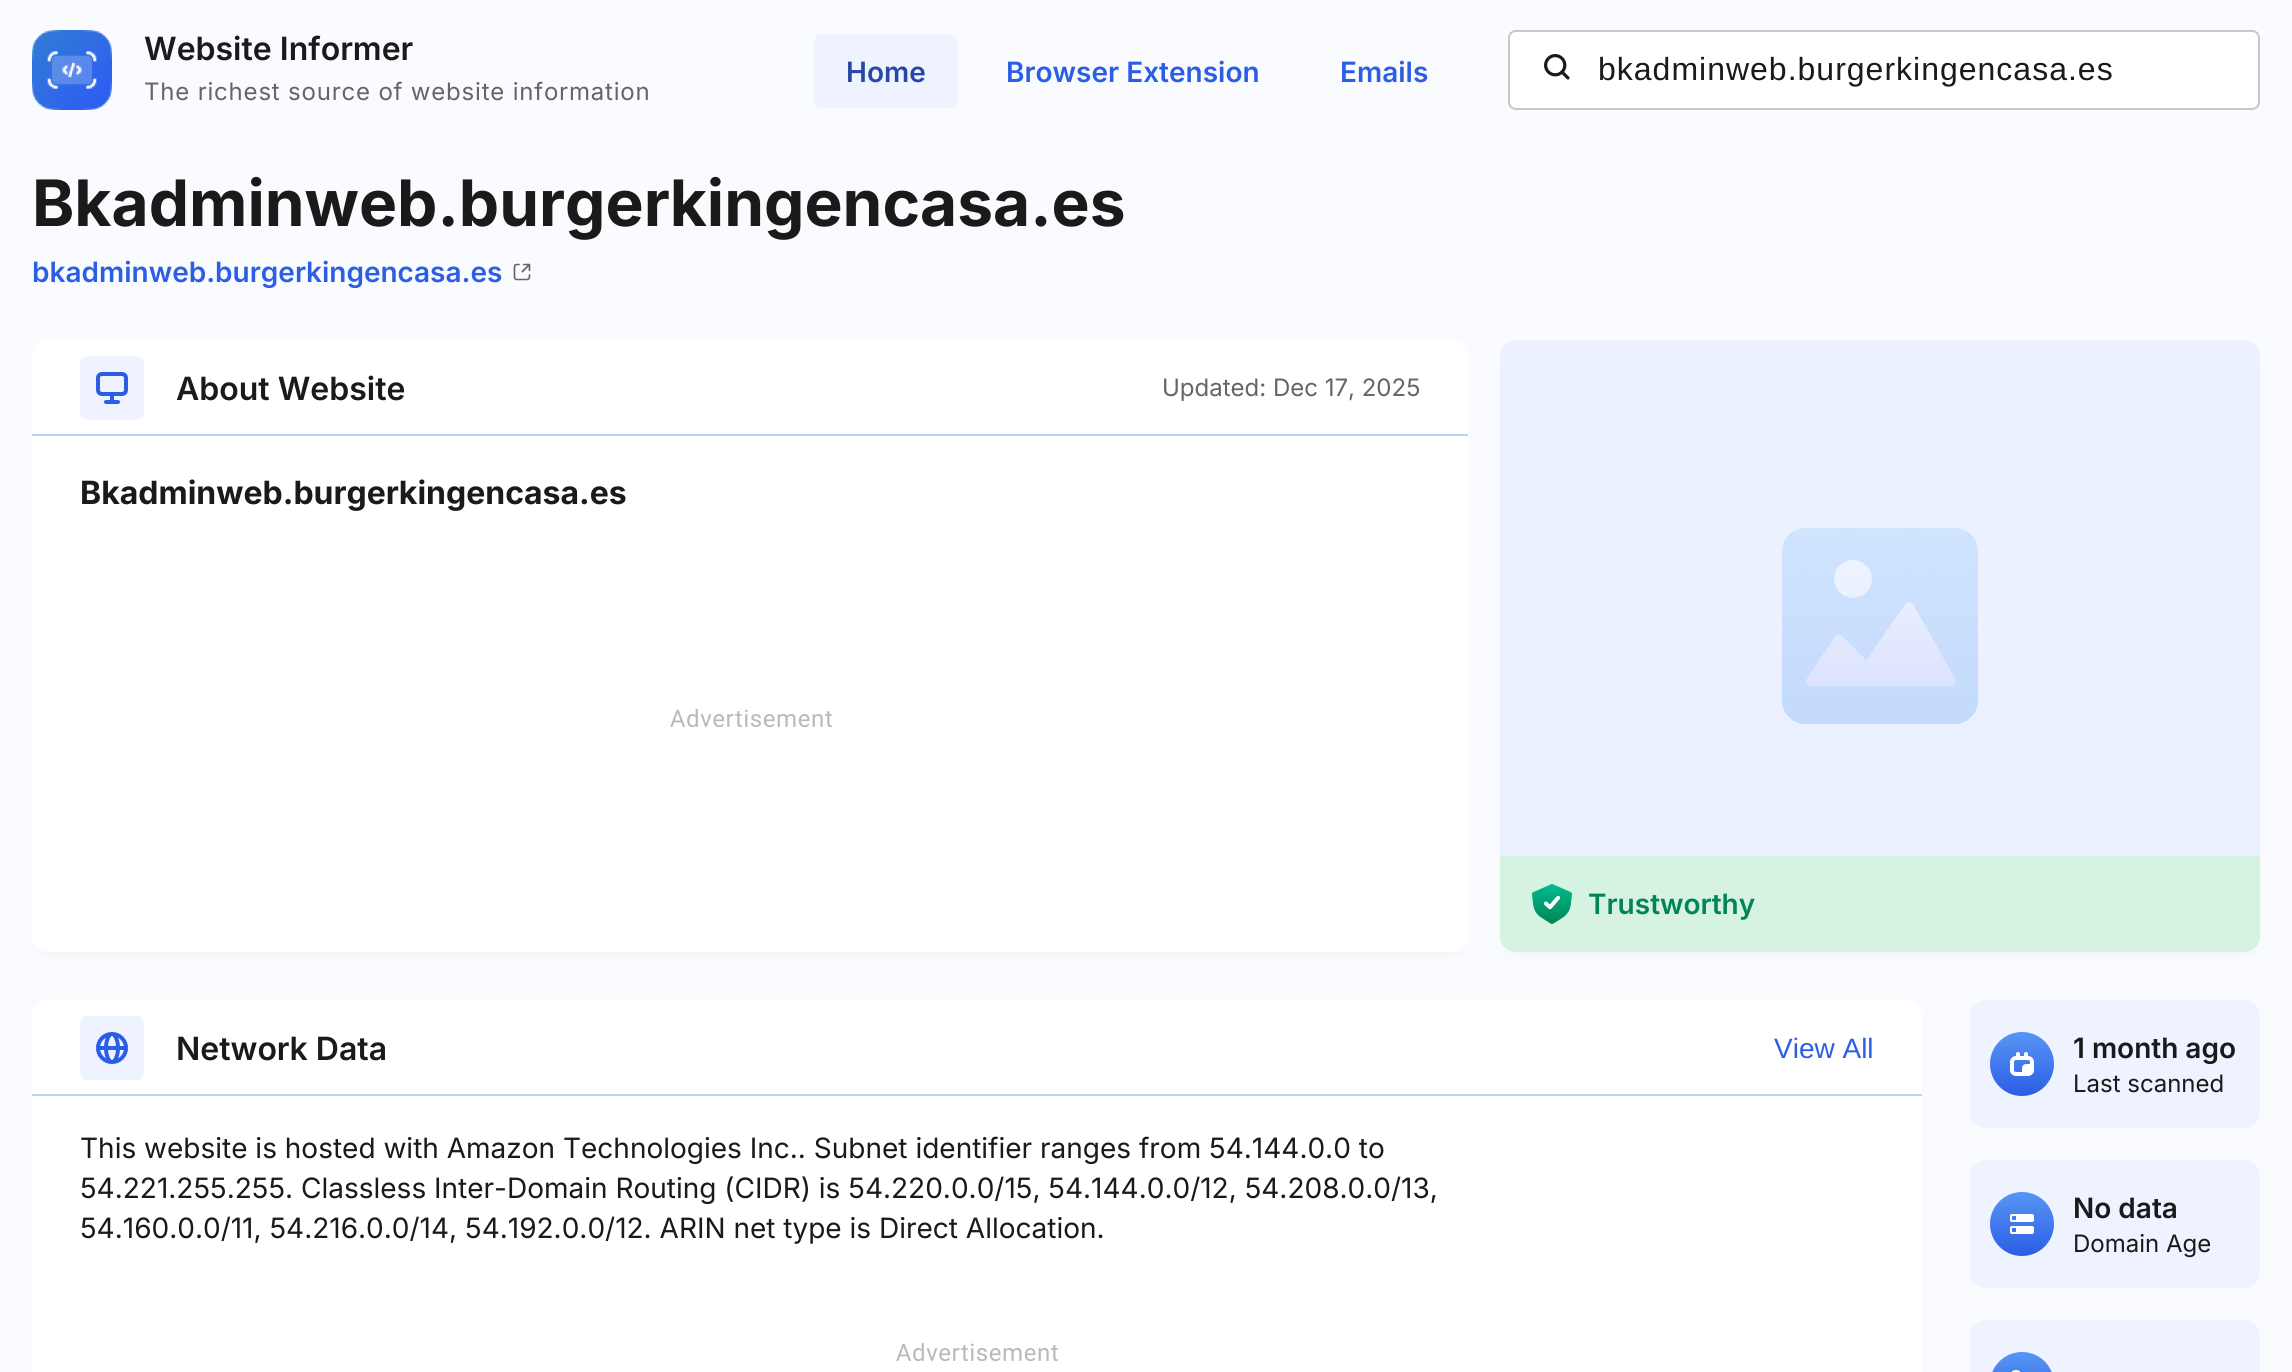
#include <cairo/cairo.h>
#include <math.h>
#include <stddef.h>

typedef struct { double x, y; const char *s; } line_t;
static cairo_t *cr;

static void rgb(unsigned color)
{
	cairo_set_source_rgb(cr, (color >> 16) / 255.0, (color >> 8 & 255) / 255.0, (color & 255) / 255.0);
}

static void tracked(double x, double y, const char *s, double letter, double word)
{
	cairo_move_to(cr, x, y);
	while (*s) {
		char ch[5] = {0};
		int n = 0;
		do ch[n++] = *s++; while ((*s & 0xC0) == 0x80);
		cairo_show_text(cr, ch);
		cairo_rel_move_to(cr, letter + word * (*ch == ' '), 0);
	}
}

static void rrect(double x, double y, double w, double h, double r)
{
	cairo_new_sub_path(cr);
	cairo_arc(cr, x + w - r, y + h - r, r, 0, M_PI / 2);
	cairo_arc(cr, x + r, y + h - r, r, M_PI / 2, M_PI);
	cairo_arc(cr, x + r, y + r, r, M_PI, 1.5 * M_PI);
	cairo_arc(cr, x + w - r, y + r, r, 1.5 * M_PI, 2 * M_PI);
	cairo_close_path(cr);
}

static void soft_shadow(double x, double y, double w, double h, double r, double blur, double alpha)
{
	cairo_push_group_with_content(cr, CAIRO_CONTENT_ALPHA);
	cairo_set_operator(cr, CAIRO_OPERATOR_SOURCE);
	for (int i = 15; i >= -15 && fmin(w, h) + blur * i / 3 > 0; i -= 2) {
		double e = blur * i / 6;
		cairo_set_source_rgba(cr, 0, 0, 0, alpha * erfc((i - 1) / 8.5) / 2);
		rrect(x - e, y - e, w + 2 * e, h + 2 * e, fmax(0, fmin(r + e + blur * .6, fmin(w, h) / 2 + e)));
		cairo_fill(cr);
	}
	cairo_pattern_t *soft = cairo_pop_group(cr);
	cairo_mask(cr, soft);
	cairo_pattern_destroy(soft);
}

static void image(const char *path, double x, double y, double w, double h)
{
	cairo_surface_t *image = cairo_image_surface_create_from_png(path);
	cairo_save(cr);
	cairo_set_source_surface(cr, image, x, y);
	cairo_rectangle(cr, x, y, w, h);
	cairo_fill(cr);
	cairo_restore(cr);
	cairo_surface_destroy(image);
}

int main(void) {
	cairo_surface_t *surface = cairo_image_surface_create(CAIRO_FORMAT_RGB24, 2292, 1372);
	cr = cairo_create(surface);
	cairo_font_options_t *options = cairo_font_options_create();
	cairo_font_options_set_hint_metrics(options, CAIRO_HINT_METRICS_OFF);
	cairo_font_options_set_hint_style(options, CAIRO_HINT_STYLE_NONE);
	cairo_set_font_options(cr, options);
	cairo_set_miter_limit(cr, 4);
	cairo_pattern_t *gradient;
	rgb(0xf9fbff);
	cairo_paint(cr);
	image("img/1.png", 32, 30, 80, 80);
	rgb(0xeef3ff);
	rrect(814, 34, 144, 74, 8);
	cairo_fill(cr);
	rgb(0xffffff);
	rrect(1509, 31, 750, 78, 7);
	cairo_fill_preserve(cr);
	rgb(0xc7c7c7);
	cairo_stroke(cr);
	image("img/2.png", 1544, 54, 26, 26);
	image("img/3.png", 513, 263, 18, 18);
	rgb(0x1a1a1a);
	soft_shadow(40, 356, 1420, 596, 8, 6, 0.06);
	rgb(0xffffff);
	rrect(32, 340, 1436, 612, 16);
	cairo_fill(cr);
	rgb(0xeef3ff);
	rrect(80, 356, 64, 64, 8);
	cairo_fill(cr);
	image("img/4.png", 96, 372, 32, 32);
	rgb(0xbfd0fd);
	cairo_rectangle(cr, 32, 434, 1436, 2);
	cairo_fill(cr);
	image("img/5.png", 670, 708, 162, 20);
	rgb(0x1a1a1a);
	soft_shadow(1508, 356, 744, 596, 8, 6, 0.06);
	rgb(0xffffff);
	rrect(1500, 340, 760, 612, 16);
	cairo_fill(cr);
	image("img/6.png", 1500, 340, 760, 612);
	rgb(0xd6f3e2);
	cairo_new_path(cr);
	cairo_move_to(cr, 1500, 856);
	cairo_line_to(cr, 2260, 856);
	cairo_line_to(cr, 2260, 936);
	cairo_curve_to(cr, 2260, 945, 2253, 952, 2244, 952);
	cairo_line_to(cr, 1516, 952);
	cairo_curve_to(cr, 1507, 952, 1500, 945, 1500, 936);
	cairo_close_path(cr);
	cairo_fill(cr);
	image("img/7.png", 1532, 884, 40, 40);
	rgb(0xffffff);
	rrect(32, 1000, 1890, 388, 16);
	cairo_fill(cr);
	rgb(0xeef3ff);
	rrect(80, 1016, 64, 64, 8);
	cairo_fill(cr);
	image("img/8.png", 96, 1032, 32, 32);
	rgb(0xbfd0fd);
	cairo_rectangle(cr, 32, 1094, 1890, 2);
	cairo_fill(cr);
	image("img/5.png", 896, 1342, 162, 20);
	rgb(0xeef3ff);
	rrect(1970, 1000, 290, 128, 16);
	cairo_fill(cr);
	gradient = cairo_pattern_create_linear(2022, 1032, 2022, 1096);
	cairo_pattern_add_color_stop_rgba(gradient, 0, 0.341, 0.588, 0.957, 1);
	cairo_pattern_add_color_stop_rgba(gradient, 1, 0.173, 0.365, 0.898, 1);
	cairo_set_source(cr, gradient);
	cairo_pattern_destroy(gradient);
	cairo_arc(cr, 2022, 1064, 32, 0, 2 * M_PI);
	cairo_fill(cr);
	image("img/9.png", 2010, 1052, 24, 24);
	rgb(0xeef3ff);
	rrect(1970, 1160, 290, 128, 16);
	cairo_fill(cr);
	gradient = cairo_pattern_create_linear(2022, 1192, 2022, 1256);
	cairo_pattern_add_color_stop_rgba(gradient, 0, 0.341, 0.588, 0.957, 1);
	cairo_pattern_add_color_stop_rgba(gradient, 1, 0.173, 0.365, 0.898, 1);
	cairo_set_source(cr, gradient);
	cairo_pattern_destroy(gradient);
	cairo_arc(cr, 2022, 1224, 32, 0, 2 * M_PI);
	cairo_fill(cr);
	image("img/10.png", 2010, 1214, 24, 20);
	rgb(0xeef3ff);
	rrect(1970, 1320, 290, 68, 16);
	cairo_fill(cr);
	gradient = cairo_pattern_create_linear(2022, 1352, 2022, 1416);
	cairo_pattern_add_color_stop_rgba(gradient, 0, 0.341, 0.588, 0.957, 1);
	cairo_pattern_add_color_stop_rgba(gradient, 1, 0.173, 0.365, 0.898, 1);
	cairo_set_source(cr, gradient);
	cairo_pattern_destroy(gradient);
	rrect(1990, 1352, 64, 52, 32);
	cairo_fill(cr);
	image("img/11.png", 2011, 1370, 10, 2);
	cairo_select_font_face(cr, "Inter SemiBold", CAIRO_FONT_SLANT_NORMAL, CAIRO_FONT_WEIGHT_NORMAL);
	cairo_set_font_size(cr, 32);
	rgb(0x1a1a1a);
	cairo_move_to(cr, 144, 60);
	cairo_show_text(cr, "Website Informer");
	cairo_select_font_face(cr, "Inter", CAIRO_FONT_SLANT_NORMAL, CAIRO_FONT_WEIGHT_NORMAL);
	cairo_set_font_size(cr, 24);
	rgb(0x656565);
	tracked(144, 100, "The richest source of website information", 0.8, 0);
	cairo_select_font_face(cr, "Inter SemiBold", CAIRO_FONT_SLANT_NORMAL, CAIRO_FONT_WEIGHT_NORMAL);
	cairo_set_font_size(cr, 28);
	rgb(0x2648a4);
	cairo_move_to(cr, 846, 82);
	cairo_show_text(cr, "Home");
	rgb(0x2c5de5);
	cairo_move_to(cr, 1006, 82);
	cairo_show_text(cr, "Browser Extension");
	cairo_move_to(cr, 1340, 82);
	cairo_show_text(cr, "Emails");
	cairo_select_font_face(cr, "Liberation Sans", CAIRO_FONT_SLANT_NORMAL, CAIRO_FONT_WEIGHT_NORMAL);
	cairo_set_font_size(cr, 32);
	rgb(0x1a1a1a);
	tracked(1598, 80, "bkadminweb.burgerkingencasa.es", 1, 0);
	cairo_select_font_face(cr, "Inter", CAIRO_FONT_SLANT_NORMAL, CAIRO_FONT_WEIGHT_BOLD);
	cairo_set_font_size(cr, 64);
	cairo_move_to(cr, 32, 226);
	cairo_show_text(cr, "Bkadminweb.burgerkingencasa.es");
	cairo_select_font_face(cr, "Inter SemiBold", CAIRO_FONT_SLANT_NORMAL, CAIRO_FONT_WEIGHT_NORMAL);
	cairo_set_font_size(cr, 28);
	rgb(0x2c5de5);
	cairo_move_to(cr, 32, 282);
	cairo_show_text(cr, "bkadminweb.burgerkingencasa.es");
	cairo_set_font_size(cr, 32);
	rgb(0x1a1a1a);
	cairo_move_to(cr, 176, 400);
	cairo_show_text(cr, "About Website");
	cairo_select_font_face(cr, "Inter", CAIRO_FONT_SLANT_NORMAL, CAIRO_FONT_WEIGHT_NORMAL);
	cairo_set_font_size(cr, 24);
	rgb(0x656565);
	cairo_move_to(cr, 1162, 396);
	cairo_show_text(cr, "Updated: Dec 17, 2025");
	cairo_select_font_face(cr, "Inter", CAIRO_FONT_SLANT_NORMAL, CAIRO_FONT_WEIGHT_BOLD);
	cairo_set_font_size(cr, 32);
	rgb(0x1a1a1a);
	cairo_move_to(cr, 80, 504);
	cairo_show_text(cr, "Bkadminweb.burgerkingencasa.es");
	cairo_select_font_face(cr, "Inter SemiBold", CAIRO_FONT_SLANT_NORMAL, CAIRO_FONT_WEIGHT_NORMAL);
	cairo_set_font_size(cr, 28);
	rgb(0x008556);
	cairo_move_to(cr, 1588, 914);
	cairo_show_text(cr, "Trustworthy");
	cairo_set_font_size(cr, 32);
	rgb(0x1a1a1a);
	cairo_move_to(cr, 176, 1060);
	cairo_show_text(cr, "Network Data");
	cairo_select_font_face(cr, "Liberation Sans", CAIRO_FONT_SLANT_NORMAL, CAIRO_FONT_WEIGHT_NORMAL);
	cairo_set_font_size(cr, 28);
	rgb(0x2c5de5);
	cairo_move_to(cr, 1774, 1058);
	cairo_show_text(cr, "View All");
	cairo_select_font_face(cr, "Inter", CAIRO_FONT_SLANT_NORMAL, CAIRO_FONT_WEIGHT_NORMAL);
	rgb(0x1a1a1a);
	{
		static const line_t items[] = {
			{80, 1158, "This website is hosted with Amazon Technologies Inc.. Subnet identifier ranges from 54.144.0.0 to"},
			{80, 1198, "54.221.255.255. Classless Inter-Domain Routing (CIDR) is 54.220.0.0/15, 54.144.0.0/12, 54.208.0.0/13,"},
			{80, 1238, "54.160.0.0/11, 54.216.0.0/14, 54.192.0.0/12. ARIN net type is Direct Allocation."},
		};
		for (size_t i = 0; i < sizeof items / sizeof *items; i++) {
			cairo_move_to(cr, items[i].x, items[i].y);
			cairo_show_text(cr, items[i].s);
		}
	}
	cairo_select_font_face(cr, "Inter SemiBold", CAIRO_FONT_SLANT_NORMAL, CAIRO_FONT_WEIGHT_NORMAL);
	cairo_move_to(cr, 2073, 1058);
	cairo_show_text(cr, "1 month ago");
	cairo_select_font_face(cr, "Inter", CAIRO_FONT_SLANT_NORMAL, CAIRO_FONT_WEIGHT_NORMAL);
	cairo_set_font_size(cr, 24);
	cairo_move_to(cr, 2073, 1092);
	cairo_show_text(cr, "Last scanned");
	cairo_select_font_face(cr, "Inter SemiBold", CAIRO_FONT_SLANT_NORMAL, CAIRO_FONT_WEIGHT_NORMAL);
	cairo_set_font_size(cr, 28);
	cairo_move_to(cr, 2073, 1218);
	cairo_show_text(cr, "No data");
	cairo_select_font_face(cr, "Inter", CAIRO_FONT_SLANT_NORMAL, CAIRO_FONT_WEIGHT_NORMAL);
	cairo_set_font_size(cr, 24);
	cairo_move_to(cr, 2073, 1252);
	cairo_show_text(cr, "Domain Age");
	cairo_surface_write_to_png(surface, "page.png");
	cairo_font_options_destroy(options);
	cairo_destroy(cr);
	cairo_surface_destroy(surface);
	return 0;
}
